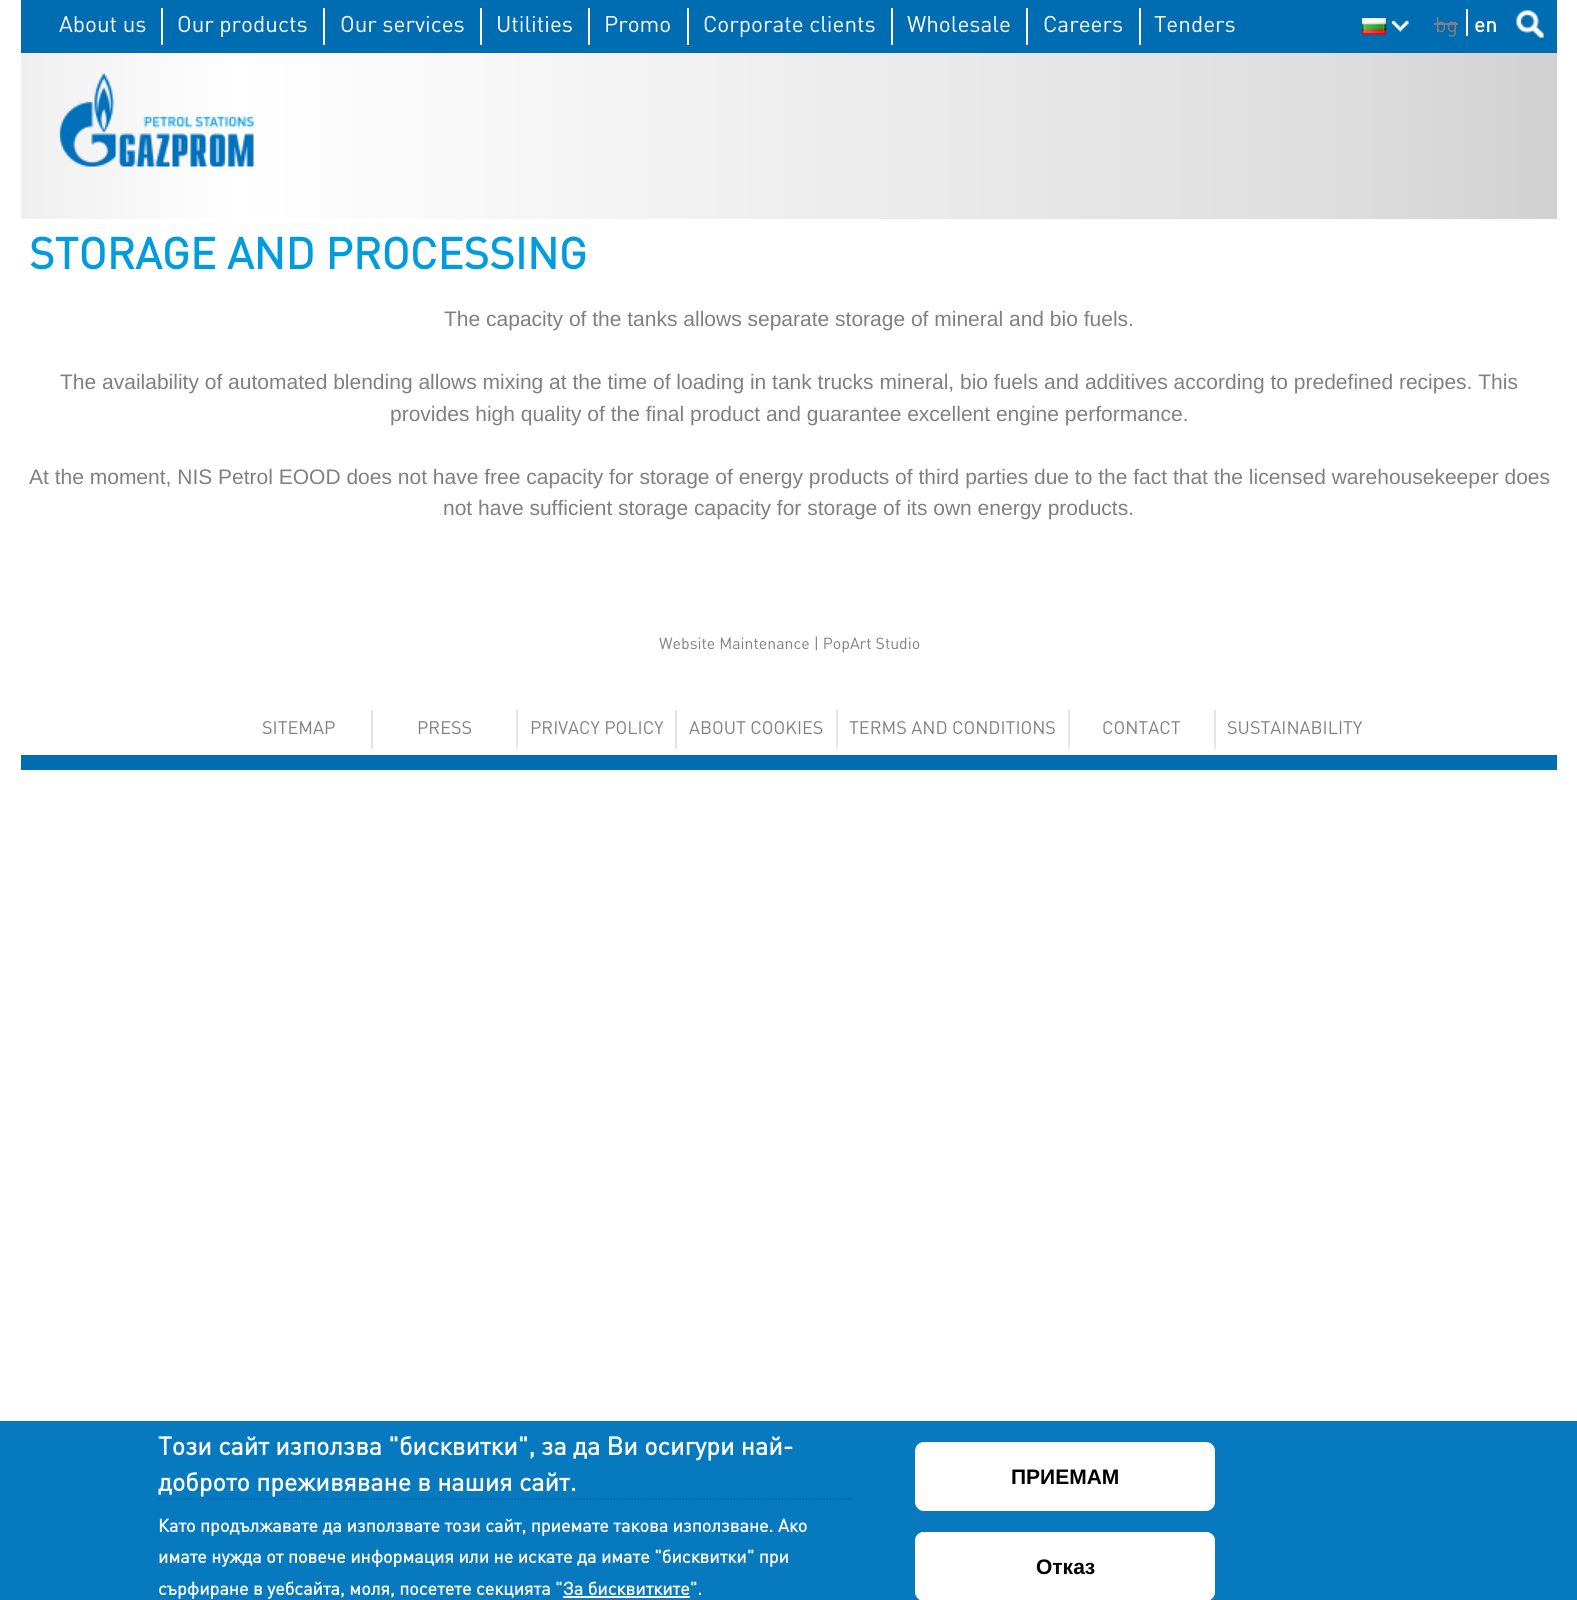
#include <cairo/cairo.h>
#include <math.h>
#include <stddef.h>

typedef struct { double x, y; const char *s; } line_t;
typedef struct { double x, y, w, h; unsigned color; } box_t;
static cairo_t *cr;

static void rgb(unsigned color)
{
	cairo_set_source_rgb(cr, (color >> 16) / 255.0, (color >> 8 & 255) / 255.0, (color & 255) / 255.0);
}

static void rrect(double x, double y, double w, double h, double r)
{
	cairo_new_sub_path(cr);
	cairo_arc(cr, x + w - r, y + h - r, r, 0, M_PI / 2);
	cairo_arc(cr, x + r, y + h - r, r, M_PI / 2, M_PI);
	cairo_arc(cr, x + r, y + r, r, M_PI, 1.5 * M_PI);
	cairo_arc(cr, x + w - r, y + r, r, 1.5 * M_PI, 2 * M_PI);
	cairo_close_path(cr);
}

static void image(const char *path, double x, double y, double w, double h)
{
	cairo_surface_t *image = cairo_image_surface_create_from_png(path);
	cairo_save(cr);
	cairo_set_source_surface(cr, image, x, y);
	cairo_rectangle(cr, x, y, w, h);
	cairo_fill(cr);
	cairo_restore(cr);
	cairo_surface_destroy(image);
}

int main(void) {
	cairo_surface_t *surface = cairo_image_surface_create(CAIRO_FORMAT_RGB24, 1577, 1600);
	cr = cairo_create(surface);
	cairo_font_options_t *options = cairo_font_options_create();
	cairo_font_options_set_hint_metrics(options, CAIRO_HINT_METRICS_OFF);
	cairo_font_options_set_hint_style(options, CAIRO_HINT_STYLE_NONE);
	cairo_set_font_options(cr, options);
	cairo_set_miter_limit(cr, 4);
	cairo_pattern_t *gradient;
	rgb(0xffffff);
	cairo_paint(cr);
	{
		static const box_t items[] = {
			{21, 0, 1536, 53, 0x006cb1},
			{161, 8, 2, 37, 0xffffff},
			{323, 8, 2, 37, 0xffffff},
			{480, 8, 2, 37, 0xffffff},
			{588, 8, 2, 37, 0xffffff},
			{687, 8, 2, 37, 0xffffff},
			{891, 8, 2, 37, 0xffffff},
			{1026, 8, 2, 37, 0xffffff},
			{1139, 8, 2, 37, 0xffffff},
		};
		for (size_t i = 0; i < sizeof items / sizeof *items; i++) {
			rgb(items[i].color);
			cairo_rectangle(cr, items[i].x, items[i].y, items[i].w, items[i].h);
			cairo_fill(cr);
		}
	}
	image("img/1.png", 1362, 18, 24, 17);
	image("img/2.png", 1391, 20, 18, 12);
	cairo_rectangle(cr, 1466, 9, 2, 27);
	cairo_fill(cr);
	rgb(0x808080);
	cairo_rectangle(cr, 1434, 23, 24, 2);
	cairo_fill(cr);
	image("img/3.png", 1516, 10, 28, 28);
	gradient = cairo_pattern_create_linear(21, 136, 1557, 136);
	cairo_pattern_add_color_stop_rgba(gradient, 0, 0.937, 0.937, 0.937, 1);
	cairo_pattern_add_color_stop_rgba(gradient, 0.14, 1, 1, 1, 1);
	cairo_pattern_add_color_stop_rgba(gradient, 0.85, 0.871, 0.871, 0.871, 1);
	cairo_pattern_add_color_stop_rgba(gradient, 1, 0.82, 0.82, 0.82, 1);
	cairo_set_source(cr, gradient);
	cairo_pattern_destroy(gradient);
	cairo_rectangle(cr, 21, 53, 1536, 166);
	cairo_fill(cr);
	image("img/4.png", 59, 73, 195, 94);
	{
		static const box_t items[] = {
			{371, 710, 2, 39, 0xe5e5e5},
			{516, 710, 2, 39, 0xe5e5e5},
			{675, 710, 2, 39, 0xe5e5e5},
			{836, 710, 2, 39, 0xe5e5e5},
			{1068, 710, 2, 39, 0xe5e5e5},
			{1214, 710, 2, 39, 0xe5e5e5},
			{21, 755, 1536, 15, 0x006cb1},
			{0, 1421, 1577, 179, 0x0779bf},
		};
		for (size_t i = 0; i < sizeof items / sizeof *items; i++) {
			rgb(items[i].color);
			cairo_rectangle(cr, items[i].x, items[i].y, items[i].w, items[i].h);
			cairo_fill(cr);
		}
	}
	cairo_new_path(cr);
	cairo_move_to(cr, 157.5, 1499);
	cairo_line_to(cr, 852, 1499);
	rgb(0x006cb1);
	cairo_set_line_width(cr, 1.5);
	cairo_set_dash(cr, (double[]){1.5, 1.5}, 2, 0);
	cairo_stroke(cr);
	rgb(0xffffff);
	cairo_rectangle(cr, 563, 1596, 127, 2);
	cairo_fill(cr);
	rrect(915, 1442, 300, 69, 9);
	cairo_fill(cr);
	rrect(915, 1532, 300, 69, 9);
	cairo_fill(cr);
	cairo_new_path(cr);
	cairo_move_to(cr, 924, 1533);
	cairo_line_to(cr, 1206, 1533);
	cairo_curve_to(cr, 1211, 1533, 1215, 1537, 1215, 1542);
	cairo_line_to(cr, 1215, 1541);
	cairo_curve_to(cr, 1215, 1536, 1211, 1532, 1206, 1532);
	cairo_line_to(cr, 924, 1532);
	cairo_curve_to(cr, 919, 1532, 915, 1536, 915, 1541);
	cairo_line_to(cr, 915, 1542);
	cairo_curve_to(cr, 915, 1537, 919, 1533, 924, 1533);
	cairo_close_path(cr);
	cairo_fill(cr);
	cairo_select_font_face(cr, "DIN", CAIRO_FONT_SLANT_NORMAL, CAIRO_FONT_WEIGHT_NORMAL);
	cairo_set_font_size(cr, 22.5);
	{
		static const line_t items[] = {
			{59, 32, "About us"},
			{177, 32, "Our products"},
			{340, 32, "Our services"},
			{496, 32, "Utilities"},
			{604, 32, "Promo"},
			{703, 32, "Corporate clients"},
			{907, 32, "Wholesale"},
			{1043, 32, "Careers"},
			{1154, 32, "Tenders"},
		};
		for (size_t i = 0; i < sizeof items / sizeof *items; i++) {
			cairo_move_to(cr, items[i].x, items[i].y);
			cairo_show_text(cr, items[i].s);
		}
	}
	cairo_set_font_size(cr, 21);
	rgb(0x808080);
	cairo_move_to(cr, 1435, 32);
	cairo_show_text(cr, "bg");
	cairo_select_font_face(cr, "DIN", CAIRO_FONT_SLANT_NORMAL, CAIRO_FONT_WEIGHT_BOLD);
	rgb(0xffffff);
	cairo_move_to(cr, 1474, 32);
	cairo_show_text(cr, "en");
	cairo_set_font_size(cr, 43.5);
	rgb(0x009cde);
	cairo_move_to(cr, 29, 269);
	cairo_show_text(cr, "STORAGE AND PROCESSING");
	cairo_select_font_face(cr, "Liberation Sans", CAIRO_FONT_SLANT_NORMAL, CAIRO_FONT_WEIGHT_NORMAL);
	cairo_set_font_size(cr, 21);
	rgb(0x808080);
	{
		static const line_t items[] = {
			{444, 326, "The capacity of the tanks allows separate storage of mineral and bio fuels."},
			{60, 389, "The availability of automated blending allows mixing at the time of loading in tank trucks mineral, bio fuels and additives according to predefined recipes. This"},
			{390, 421, "provides high quality of the final product and guarantee excellent engine performance."},
			{29, 484, "At the moment, NIS Petrol EOOD does not have free capacity for storage of energy products of third parties due to the fact that the licensed warehousekeeper does"},
			{443, 515, "not have sufficient storage capacity for storage of its own energy products."},
		};
		for (size_t i = 0; i < sizeof items / sizeof *items; i++) {
			cairo_move_to(cr, items[i].x, items[i].y);
			cairo_show_text(cr, items[i].s);
		}
	}
	cairo_select_font_face(cr, "DIN", CAIRO_FONT_SLANT_NORMAL, CAIRO_FONT_WEIGHT_NORMAL);
	cairo_set_font_size(cr, 15.9);
	cairo_move_to(cr, 659, 649);
	cairo_show_text(cr, "Website Maintenance | PopArt Studio");
	cairo_set_font_size(cr, 18);
	{
		static const line_t items[] = {
			{262, 734, "SITEMAP"},
			{417, 734, "PRESS"},
			{530, 734, "PRIVACY POLICY"},
			{689, 734, "ABOUT COOKIES"},
			{849, 734, "TERMS AND CONDITIONS"},
			{1102, 734, "CONTACT"},
			{1227, 734, "SUSTAINABILITY"},
		};
		for (size_t i = 0; i < sizeof items / sizeof *items; i++) {
			cairo_move_to(cr, items[i].x, items[i].y);
			cairo_show_text(cr, items[i].s);
		}
	}
	cairo_select_font_face(cr, "DIN", CAIRO_FONT_SLANT_NORMAL, CAIRO_FONT_WEIGHT_BOLD);
	cairo_set_font_size(cr, 25.2);
	rgb(0xffffff);
	cairo_move_to(cr, 158, 1455);
	cairo_show_text(cr, "Този сайт използва \"бисквитки\", за да Ви осигури най-");
	cairo_move_to(cr, 158, 1491);
	cairo_show_text(cr, "доброто преживяване в нашия сайт.");
	cairo_set_font_size(cr, 18);
	{
		static const line_t items[] = {
			{158, 1532, "Като продължавате да използвате този сайт, приемате такова използване. Ако"},
			{158, 1563, "имате нужда от повече информация или не искате да имате \"бисквитки\" при"},
			{158, 1595, "сърфиране в уебсайта, моля, посетете секцията \"За бисквитките\"."},
		};
		for (size_t i = 0; i < sizeof items / sizeof *items; i++) {
			cairo_move_to(cr, items[i].x, items[i].y);
			cairo_show_text(cr, items[i].s);
		}
	}
	cairo_select_font_face(cr, "Liberation Sans", CAIRO_FONT_SLANT_NORMAL, CAIRO_FONT_WEIGHT_BOLD);
	cairo_set_font_size(cr, 21);
	rgb(0x000000);
	cairo_move_to(cr, 1011, 1484);
	cairo_show_text(cr, "ПРИЕМАМ");
	cairo_move_to(cr, 1036, 1574);
	cairo_show_text(cr, "Отказ");
	cairo_surface_write_to_png(surface, "page.png");
	cairo_font_options_destroy(options);
	cairo_destroy(cr);
	cairo_surface_destroy(surface);
	return 0;
}
